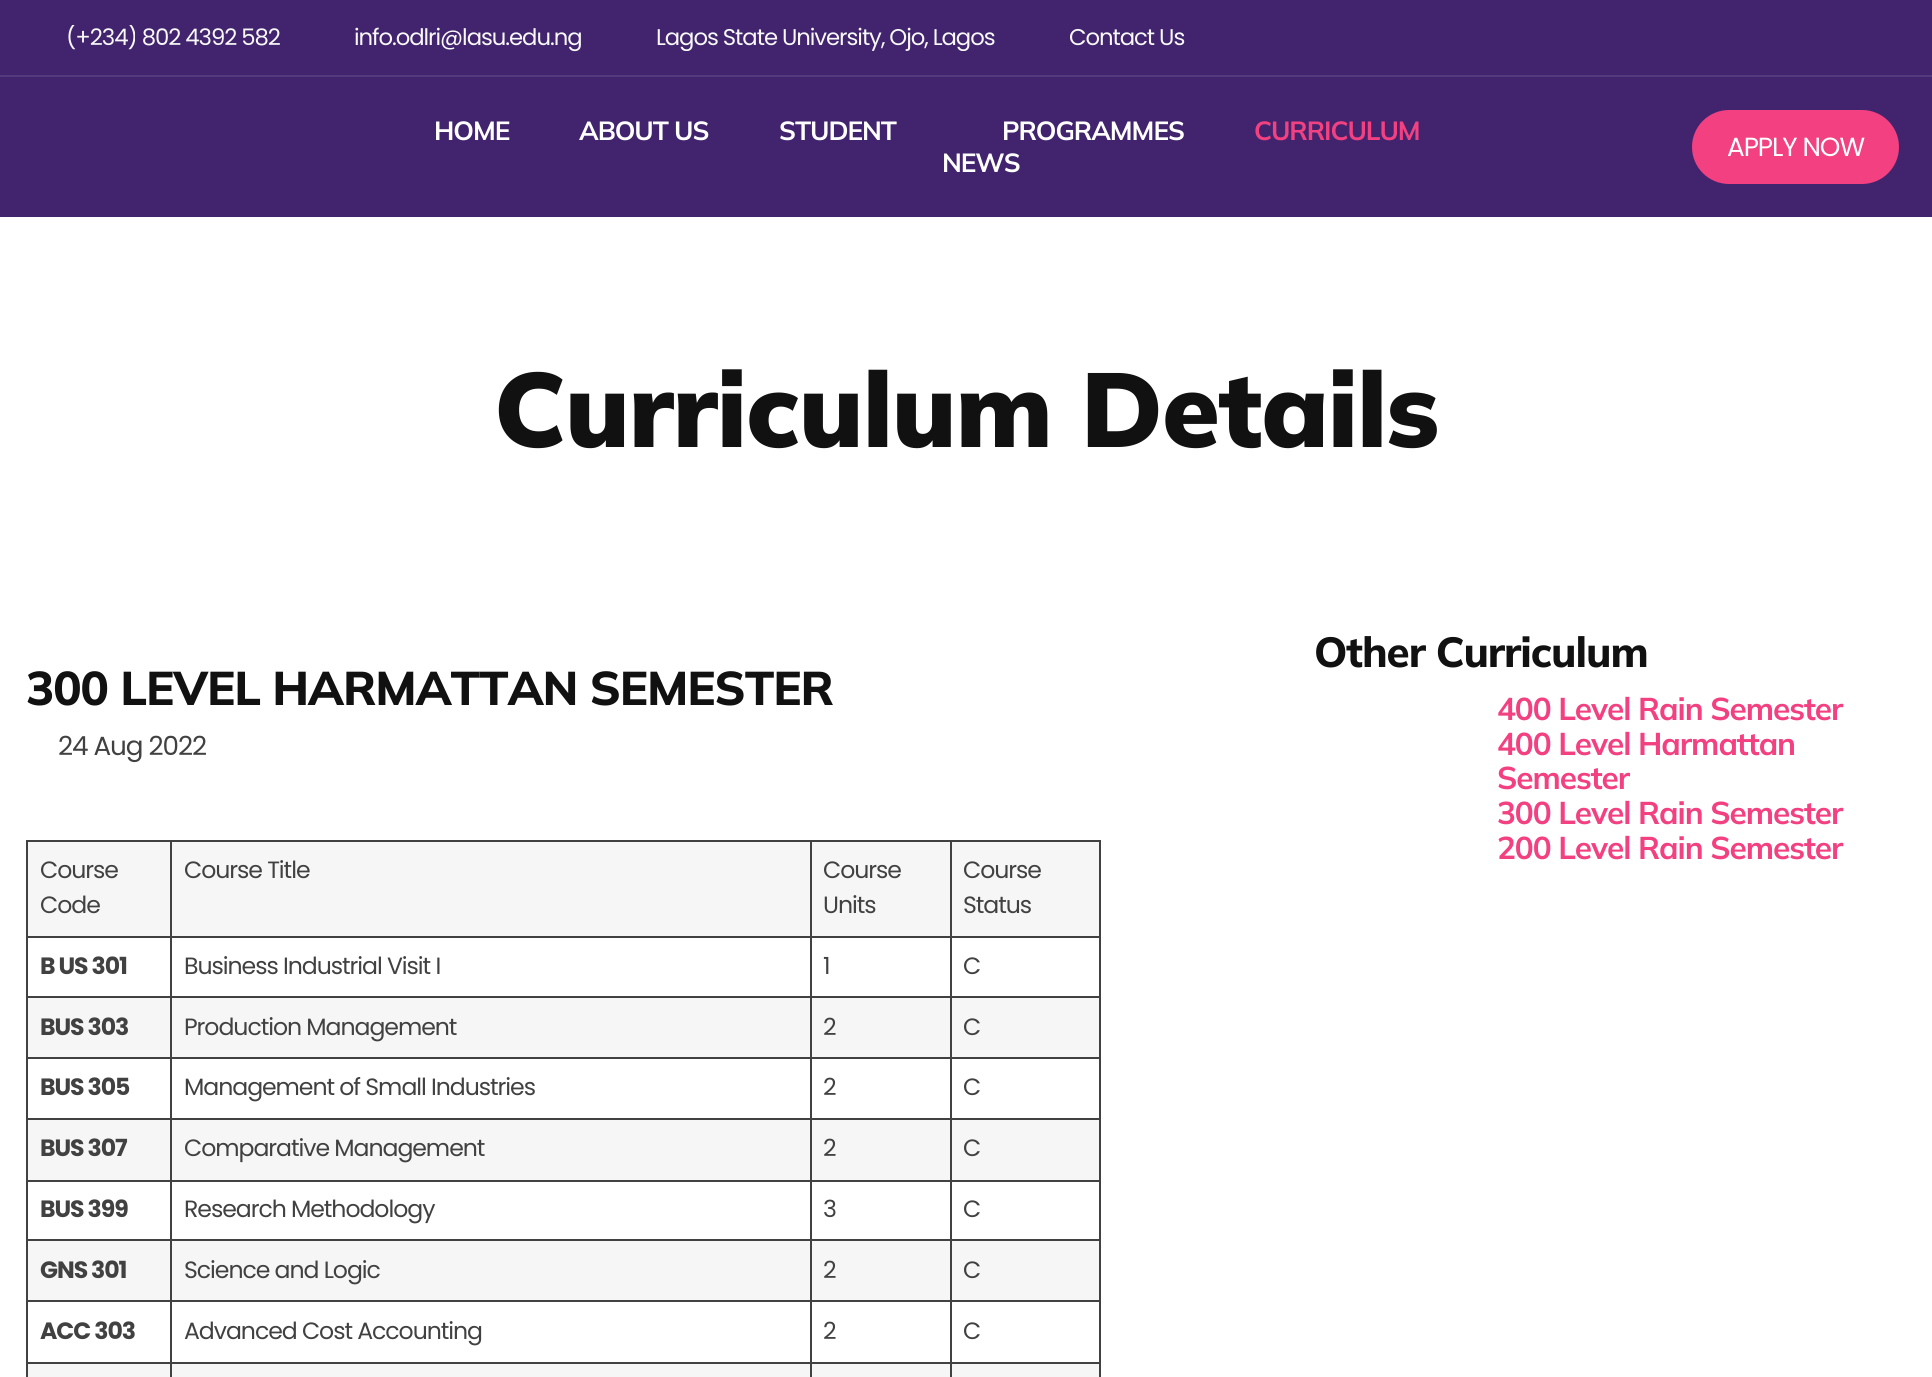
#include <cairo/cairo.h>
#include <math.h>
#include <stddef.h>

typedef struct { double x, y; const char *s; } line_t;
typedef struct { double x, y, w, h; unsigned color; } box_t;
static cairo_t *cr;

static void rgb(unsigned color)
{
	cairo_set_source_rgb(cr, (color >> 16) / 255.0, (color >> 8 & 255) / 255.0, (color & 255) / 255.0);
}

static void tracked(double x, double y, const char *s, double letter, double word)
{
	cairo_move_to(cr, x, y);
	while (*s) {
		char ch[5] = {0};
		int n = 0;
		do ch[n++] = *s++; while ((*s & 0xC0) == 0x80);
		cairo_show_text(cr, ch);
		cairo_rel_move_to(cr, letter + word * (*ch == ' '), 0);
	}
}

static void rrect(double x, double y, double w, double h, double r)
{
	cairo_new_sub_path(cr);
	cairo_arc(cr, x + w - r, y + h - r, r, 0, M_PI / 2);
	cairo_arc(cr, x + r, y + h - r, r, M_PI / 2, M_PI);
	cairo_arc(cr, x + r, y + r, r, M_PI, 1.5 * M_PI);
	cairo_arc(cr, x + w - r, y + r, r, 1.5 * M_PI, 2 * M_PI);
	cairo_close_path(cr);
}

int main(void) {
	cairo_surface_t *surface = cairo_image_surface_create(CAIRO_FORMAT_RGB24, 1932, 1377);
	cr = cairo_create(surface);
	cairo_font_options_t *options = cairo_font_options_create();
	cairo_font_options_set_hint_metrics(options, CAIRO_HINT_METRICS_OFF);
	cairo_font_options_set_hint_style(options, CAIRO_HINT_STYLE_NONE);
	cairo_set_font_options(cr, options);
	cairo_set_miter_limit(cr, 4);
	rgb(0xffffff);
	cairo_paint(cr);
	{
		static const box_t items[] = {
			{0, 0, 1932, 75, 0x41246d},
			{0, 75, 1932, 2, 0x553b7c},
			{0, 77, 1932, 140, 0x41246d},
		};
		for (size_t i = 0; i < sizeof items / sizeof *items; i++) {
			rgb(items[i].color);
			cairo_rectangle(cr, items[i].x, items[i].y, items[i].w, items[i].h);
			cairo_fill(cr);
		}
	}
	rgb(0xf24080);
	rrect(1692, 110, 207, 74, 37);
	cairo_fill(cr);
	{
		static const box_t items[] = {
			{28, 842, 142, 94, 0xf6f6f6},
			{950, 840, 151, 2, 0x414141},
			{950, 936, 151, 2, 0x414141},
			{950, 996, 151, 2, 0x414141},
			{950, 1057, 151, 2, 0x414141},
			{950, 1118, 151, 2, 0x414141},
			{950, 1180, 151, 2, 0x414141},
			{950, 1239, 151, 2, 0x414141},
			{950, 1300, 151, 2, 0x414141},
			{950, 1362, 151, 2, 0x414141},
			{950, 1362, 2, 15, 0x414141},
			{810, 1362, 142, 2, 0x414141},
			{950, 1300, 2, 63, 0x414141},
			{810, 1300, 142, 2, 0x414141},
			{950, 1239, 2, 63, 0x414141},
			{810, 1239, 142, 2, 0x414141},
			{950, 1180, 2, 61, 0x414141},
			{810, 1180, 142, 2, 0x414141},
			{950, 1118, 2, 63, 0x414141},
			{810, 1118, 142, 2, 0x414141},
			{950, 1057, 2, 63, 0x414141},
			{810, 1057, 142, 2, 0x414141},
			{950, 996, 2, 63, 0x414141},
			{810, 996, 142, 2, 0x414141},
			{950, 936, 2, 62, 0x414141},
			{810, 936, 142, 2, 0x414141},
			{950, 840, 2, 98, 0x414141},
			{810, 840, 142, 2, 0x414141},
			{810, 1362, 2, 15, 0x414141},
			{170, 1362, 642, 2, 0x414141},
			{810, 1300, 2, 63, 0x414141},
			{170, 1300, 642, 2, 0x414141},
			{810, 1239, 2, 63, 0x414141},
			{170, 1239, 642, 2, 0x414141},
			{810, 1180, 2, 61, 0x414141},
			{170, 1180, 642, 2, 0x414141},
			{810, 1118, 2, 63, 0x414141},
			{170, 1118, 642, 2, 0x414141},
			{810, 1057, 2, 63, 0x414141},
			{170, 1057, 642, 2, 0x414141},
			{810, 996, 2, 63, 0x414141},
			{170, 996, 642, 2, 0x414141},
			{810, 936, 2, 62, 0x414141},
			{170, 936, 642, 2, 0x414141},
			{810, 840, 2, 98, 0x414141},
			{170, 840, 642, 2, 0x414141},
			{170, 1362, 2, 15, 0x414141},
			{26, 1362, 146, 2, 0x414141},
			{170, 1300, 2, 63, 0x414141},
			{26, 1300, 146, 2, 0x414141},
			{170, 1239, 2, 63, 0x414141},
			{26, 1239, 146, 2, 0x414141},
			{170, 1180, 2, 61, 0x414141},
			{26, 1180, 146, 2, 0x414141},
			{170, 1118, 2, 63, 0x414141},
			{26, 1118, 146, 2, 0x414141},
			{170, 1057, 2, 63, 0x414141},
			{26, 1057, 146, 2, 0x414141},
			{170, 996, 2, 63, 0x414141},
			{26, 996, 146, 2, 0x414141},
			{170, 936, 2, 62, 0x414141},
			{26, 936, 146, 2, 0x414141},
			{170, 840, 2, 98, 0x414141},
			{26, 840, 146, 2, 0x414141},
			{26, 1362, 2, 15, 0x414141},
			{26, 1300, 2, 63, 0x414141},
			{26, 1239, 2, 63, 0x414141},
			{26, 1180, 2, 61, 0x414141},
			{26, 1118, 2, 63, 0x414141},
			{26, 1057, 2, 63, 0x414141},
			{26, 996, 2, 63, 0x414141},
			{26, 936, 2, 62, 0x414141},
			{26, 840, 2, 98, 0x414141},
			{172, 842, 638, 94, 0xf6f6f6},
			{812, 842, 138, 94, 0xf6f6f6},
			{952, 842, 147, 94, 0xf6f6f6},
			{1099, 1362, 2, 15, 0x414141},
			{1099, 1300, 2, 63, 0x414141},
			{1099, 1239, 2, 63, 0x414141},
			{1099, 1180, 2, 61, 0x414141},
			{1099, 1118, 2, 63, 0x414141},
			{1099, 1057, 2, 63, 0x414141},
			{1099, 996, 2, 63, 0x414141},
			{1099, 936, 2, 62, 0x414141},
			{1099, 840, 2, 98, 0x414141},
			{28, 998, 142, 59, 0xf6f6f6},
			{172, 998, 638, 59, 0xf6f6f6},
			{812, 998, 138, 59, 0xf6f6f6},
			{952, 998, 147, 59, 0xf6f6f6},
			{28, 1120, 142, 60, 0xf6f6f6},
			{172, 1120, 638, 60, 0xf6f6f6},
			{812, 1120, 138, 60, 0xf6f6f6},
			{952, 1120, 147, 60, 0xf6f6f6},
			{28, 1241, 142, 59, 0xf6f6f6},
			{172, 1241, 638, 59, 0xf6f6f6},
			{812, 1241, 138, 59, 0xf6f6f6},
			{952, 1241, 147, 59, 0xf6f6f6},
			{28, 1364, 142, 13, 0xf6f6f6},
			{172, 1364, 638, 13, 0xf6f6f6},
			{812, 1364, 138, 13, 0xf6f6f6},
			{952, 1364, 147, 13, 0xf6f6f6},
		};
		for (size_t i = 0; i < sizeof items / sizeof *items; i++) {
			rgb(items[i].color);
			cairo_rectangle(cr, items[i].x, items[i].y, items[i].w, items[i].h);
			cairo_fill(cr);
		}
	}
	cairo_save(cr);
	cairo_rectangle(cr, 26, 25, 1290, 26);
	cairo_clip(cr);
	cairo_select_font_face(cr, "Poppins", CAIRO_FONT_SLANT_NORMAL, CAIRO_FONT_WEIGHT_NORMAL);
	cairo_set_font_size(cr, 22.75);
	rgb(0xf8f8f8);
	tracked(66, 45, "(+234) 802 4392 582", -1.05, 0);
	cairo_restore(cr);
	cairo_select_font_face(cr, "Poppins", CAIRO_FONT_SLANT_NORMAL, CAIRO_FONT_WEIGHT_NORMAL);
	cairo_set_font_size(cr, 22.75);
	rgb(0xf8f8f8);
	tracked(354, 45, "info.odlri@lasu.edu.ng", -1.05, 0);
	cairo_save(cr);
	cairo_rectangle(cr, 26, 25, 1290, 26);
	cairo_clip(cr);
	tracked(656, 45, "Lagos State University, Ojo, Lagos", -1.05, 0);
	cairo_restore(cr);
	tracked(1069, 45, "Contact Us", -1.05, 0);
	cairo_select_font_face(cr, "Mulish", CAIRO_FONT_SLANT_NORMAL, CAIRO_FONT_WEIGHT_BOLD);
	cairo_set_font_size(cr, 26.25);
	rgb(0xffffff);
	{
		static const line_t items[] = {
			{434, 140, "HOME"},
			{579, 140, "ABOUT US"},
			{779, 140, "STUDENT"},
			{1002, 140, "PROGRAMMES"},
		};
		for (size_t i = 0; i < sizeof items / sizeof *items; i++) {
			tracked(items[i].x, items[i].y, items[i].s, -1.05, 0);
		}
	}
	rgb(0xf24080);
	tracked(1254, 140, "CURRICULUM", -1.05, 0);
	rgb(0xffffff);
	tracked(942, 172, "NEWS", -1.05, 0);
	cairo_select_font_face(cr, "Poppins", CAIRO_FONT_SLANT_NORMAL, CAIRO_FONT_WEIGHT_NORMAL);
	tracked(1727, 156, "APPLY NOW", -1.05, 0);
	cairo_select_font_face(cr, "Mulish Black", CAIRO_FONT_SLANT_NORMAL, CAIRO_FONT_WEIGHT_NORMAL);
	cairo_set_font_size(cr, 105);
	rgb(0x111111);
	tracked(494, 447, "Curriculum Details", -1.05, 0);
	cairo_select_font_face(cr, "Mulish ExtraBold", CAIRO_FONT_SLANT_NORMAL, CAIRO_FONT_WEIGHT_NORMAL);
	cairo_set_font_size(cr, 47.25);
	tracked(26, 705, "300 LEVEL HARMATTAN SEMESTER", -1.05, 0);
	cairo_select_font_face(cr, "Poppins", CAIRO_FONT_SLANT_NORMAL, CAIRO_FONT_WEIGHT_NORMAL);
	cairo_set_font_size(cr, 26.25);
	rgb(0x414141);
	tracked(58, 755, "24 Aug 2022", -1.05, 0);
	cairo_set_font_size(cr, 23.6);
	{
		static const line_t items[] = {
			{40, 878, "Course"},
			{40, 913, "Code"},
			{184, 878, "Course Title"},
			{823, 878, "Course"},
			{823, 913, "Units"},
			{963, 878, "Course"},
			{963, 913, "Status"},
		};
		for (size_t i = 0; i < sizeof items / sizeof *items; i++) {
			tracked(items[i].x, items[i].y, items[i].s, -1.05, 0);
		}
	}
	cairo_select_font_face(cr, "Poppins", CAIRO_FONT_SLANT_NORMAL, CAIRO_FONT_WEIGHT_BOLD);
	tracked(40, 974, "B US 301", -1.05, 0);
	cairo_select_font_face(cr, "Poppins", CAIRO_FONT_SLANT_NORMAL, CAIRO_FONT_WEIGHT_NORMAL);
	{
		static const line_t items[] = {
			{184, 974, "Business Industrial Visit I"},
			{823, 974, "1"},
			{963, 974, "C"},
		};
		for (size_t i = 0; i < sizeof items / sizeof *items; i++) {
			tracked(items[i].x, items[i].y, items[i].s, -1.05, 0);
		}
	}
	cairo_select_font_face(cr, "Poppins", CAIRO_FONT_SLANT_NORMAL, CAIRO_FONT_WEIGHT_BOLD);
	tracked(40, 1035, "BUS 303", -1.05, 0);
	cairo_select_font_face(cr, "Poppins", CAIRO_FONT_SLANT_NORMAL, CAIRO_FONT_WEIGHT_NORMAL);
	{
		static const line_t items[] = {
			{184, 1035, "Production Management"},
			{823, 1035, "2"},
			{963, 1035, "C"},
		};
		for (size_t i = 0; i < sizeof items / sizeof *items; i++) {
			tracked(items[i].x, items[i].y, items[i].s, -1.05, 0);
		}
	}
	cairo_select_font_face(cr, "Poppins", CAIRO_FONT_SLANT_NORMAL, CAIRO_FONT_WEIGHT_BOLD);
	tracked(40, 1095, "BUS 305", -1.05, 0);
	cairo_select_font_face(cr, "Poppins", CAIRO_FONT_SLANT_NORMAL, CAIRO_FONT_WEIGHT_NORMAL);
	{
		static const line_t items[] = {
			{184, 1095, "Management of Small Industries"},
			{823, 1095, "2"},
			{963, 1095, "C"},
		};
		for (size_t i = 0; i < sizeof items / sizeof *items; i++) {
			tracked(items[i].x, items[i].y, items[i].s, -1.05, 0);
		}
	}
	cairo_select_font_face(cr, "Poppins", CAIRO_FONT_SLANT_NORMAL, CAIRO_FONT_WEIGHT_BOLD);
	tracked(40, 1156, "BUS 307", -1.05, 0);
	cairo_select_font_face(cr, "Poppins", CAIRO_FONT_SLANT_NORMAL, CAIRO_FONT_WEIGHT_NORMAL);
	{
		static const line_t items[] = {
			{184, 1156, "Comparative Management"},
			{823, 1156, "2"},
			{963, 1156, "C"},
		};
		for (size_t i = 0; i < sizeof items / sizeof *items; i++) {
			tracked(items[i].x, items[i].y, items[i].s, -1.05, 0);
		}
	}
	cairo_select_font_face(cr, "Poppins", CAIRO_FONT_SLANT_NORMAL, CAIRO_FONT_WEIGHT_BOLD);
	tracked(40, 1217, "BUS 399", -1.05, 0);
	cairo_select_font_face(cr, "Poppins", CAIRO_FONT_SLANT_NORMAL, CAIRO_FONT_WEIGHT_NORMAL);
	{
		static const line_t items[] = {
			{184, 1217, "Research Methodology"},
			{823, 1217, "3"},
			{963, 1217, "C"},
		};
		for (size_t i = 0; i < sizeof items / sizeof *items; i++) {
			tracked(items[i].x, items[i].y, items[i].s, -1.05, 0);
		}
	}
	cairo_select_font_face(cr, "Poppins", CAIRO_FONT_SLANT_NORMAL, CAIRO_FONT_WEIGHT_BOLD);
	tracked(40, 1278, "GNS 301", -1.05, 0);
	cairo_select_font_face(cr, "Poppins", CAIRO_FONT_SLANT_NORMAL, CAIRO_FONT_WEIGHT_NORMAL);
	{
		static const line_t items[] = {
			{184, 1278, "Science and Logic"},
			{823, 1278, "2"},
			{963, 1278, "C"},
		};
		for (size_t i = 0; i < sizeof items / sizeof *items; i++) {
			tracked(items[i].x, items[i].y, items[i].s, -1.05, 0);
		}
	}
	cairo_select_font_face(cr, "Poppins", CAIRO_FONT_SLANT_NORMAL, CAIRO_FONT_WEIGHT_BOLD);
	tracked(40, 1339, "ACC 303", -1.05, 0);
	cairo_select_font_face(cr, "Poppins", CAIRO_FONT_SLANT_NORMAL, CAIRO_FONT_WEIGHT_NORMAL);
	{
		static const line_t items[] = {
			{184, 1339, "Advanced Cost Accounting"},
			{823, 1339, "2"},
			{963, 1339, "C"},
		};
		for (size_t i = 0; i < sizeof items / sizeof *items; i++) {
			tracked(items[i].x, items[i].y, items[i].s, -1.05, 0);
		}
	}
	cairo_select_font_face(cr, "Mulish ExtraBold", CAIRO_FONT_SLANT_NORMAL, CAIRO_FONT_WEIGHT_NORMAL);
	cairo_set_font_size(cr, 42);
	rgb(0x111111);
	tracked(1314, 667, "Other Curriculum", -1.05, 0);
	cairo_select_font_face(cr, "Mulish", CAIRO_FONT_SLANT_NORMAL, CAIRO_FONT_WEIGHT_BOLD);
	cairo_set_font_size(cr, 31.5);
	rgb(0xf24080);
	{
		static const line_t items[] = {
			{1497, 720, "400 Level Rain Semester"},
			{1497, 755, "400 Level Harmattan"},
			{1497, 789, "Semester"},
			{1497, 824, "300 Level Rain Semester"},
			{1497, 859, "200 Level Rain Semester"},
		};
		for (size_t i = 0; i < sizeof items / sizeof *items; i++) {
			tracked(items[i].x, items[i].y, items[i].s, -1.05, 0);
		}
	}
	cairo_surface_write_to_png(surface, "page.png");
	cairo_font_options_destroy(options);
	cairo_destroy(cr);
	cairo_surface_destroy(surface);
	return 0;
}
